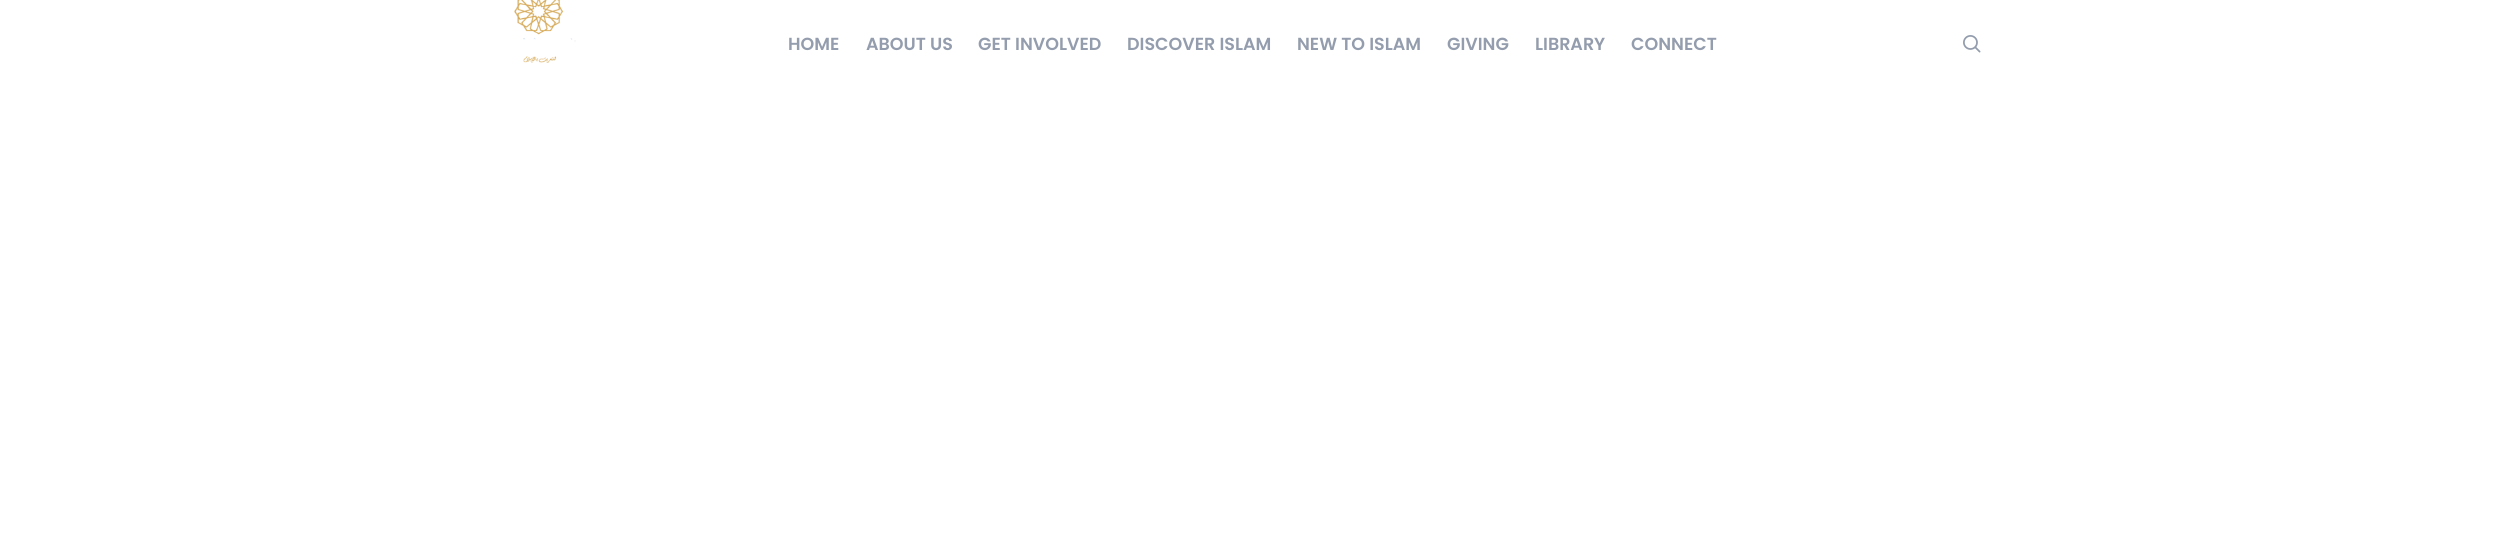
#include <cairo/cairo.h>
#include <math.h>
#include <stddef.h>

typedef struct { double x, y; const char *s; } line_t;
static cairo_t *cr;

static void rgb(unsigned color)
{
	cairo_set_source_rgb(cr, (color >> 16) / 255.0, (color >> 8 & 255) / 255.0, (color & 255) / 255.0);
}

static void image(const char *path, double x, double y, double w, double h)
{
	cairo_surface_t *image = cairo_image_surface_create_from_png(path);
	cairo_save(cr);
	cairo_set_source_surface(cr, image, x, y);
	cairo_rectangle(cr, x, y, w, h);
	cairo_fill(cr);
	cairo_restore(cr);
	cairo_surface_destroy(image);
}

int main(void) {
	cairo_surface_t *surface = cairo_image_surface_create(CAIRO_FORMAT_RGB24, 2504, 550);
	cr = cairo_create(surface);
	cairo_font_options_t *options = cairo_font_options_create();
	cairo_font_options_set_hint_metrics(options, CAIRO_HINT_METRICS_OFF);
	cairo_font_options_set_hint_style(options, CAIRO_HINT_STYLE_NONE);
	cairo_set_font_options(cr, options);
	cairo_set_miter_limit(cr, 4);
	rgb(0xffffff);
	cairo_paint(cr);
	image("img/1.png", 514, 0, 62, 63);
	image("img/2.png", 1963, 35, 18, 18);
	cairo_select_font_face(cr, "Poppins SemiBold", CAIRO_FONT_SLANT_NORMAL, CAIRO_FONT_WEIGHT_NORMAL);
	cairo_set_font_size(cr, 17.5);
	rgb(0x949dad);
	{
		static const line_t items[] = {
			{788, 50, "HOME"},
			{866, 50, "ABOUT US"},
			{978, 50, "GET INVOLVED"},
			{1127, 50, "DISCOVER ISLAM"},
			{1297, 50, "NEW TO ISLAM"},
			{1447, 50, "GIVING"},
			{1535, 50, "LIBRARY"},
			{1631, 50, "CONNECT"},
		};
		for (size_t i = 0; i < sizeof items / sizeof *items; i++) {
			cairo_move_to(cr, items[i].x, items[i].y);
			cairo_show_text(cr, items[i].s);
		}
	}
	cairo_surface_write_to_png(surface, "page.png");
	cairo_font_options_destroy(options);
	cairo_destroy(cr);
	cairo_surface_destroy(surface);
	return 0;
}
